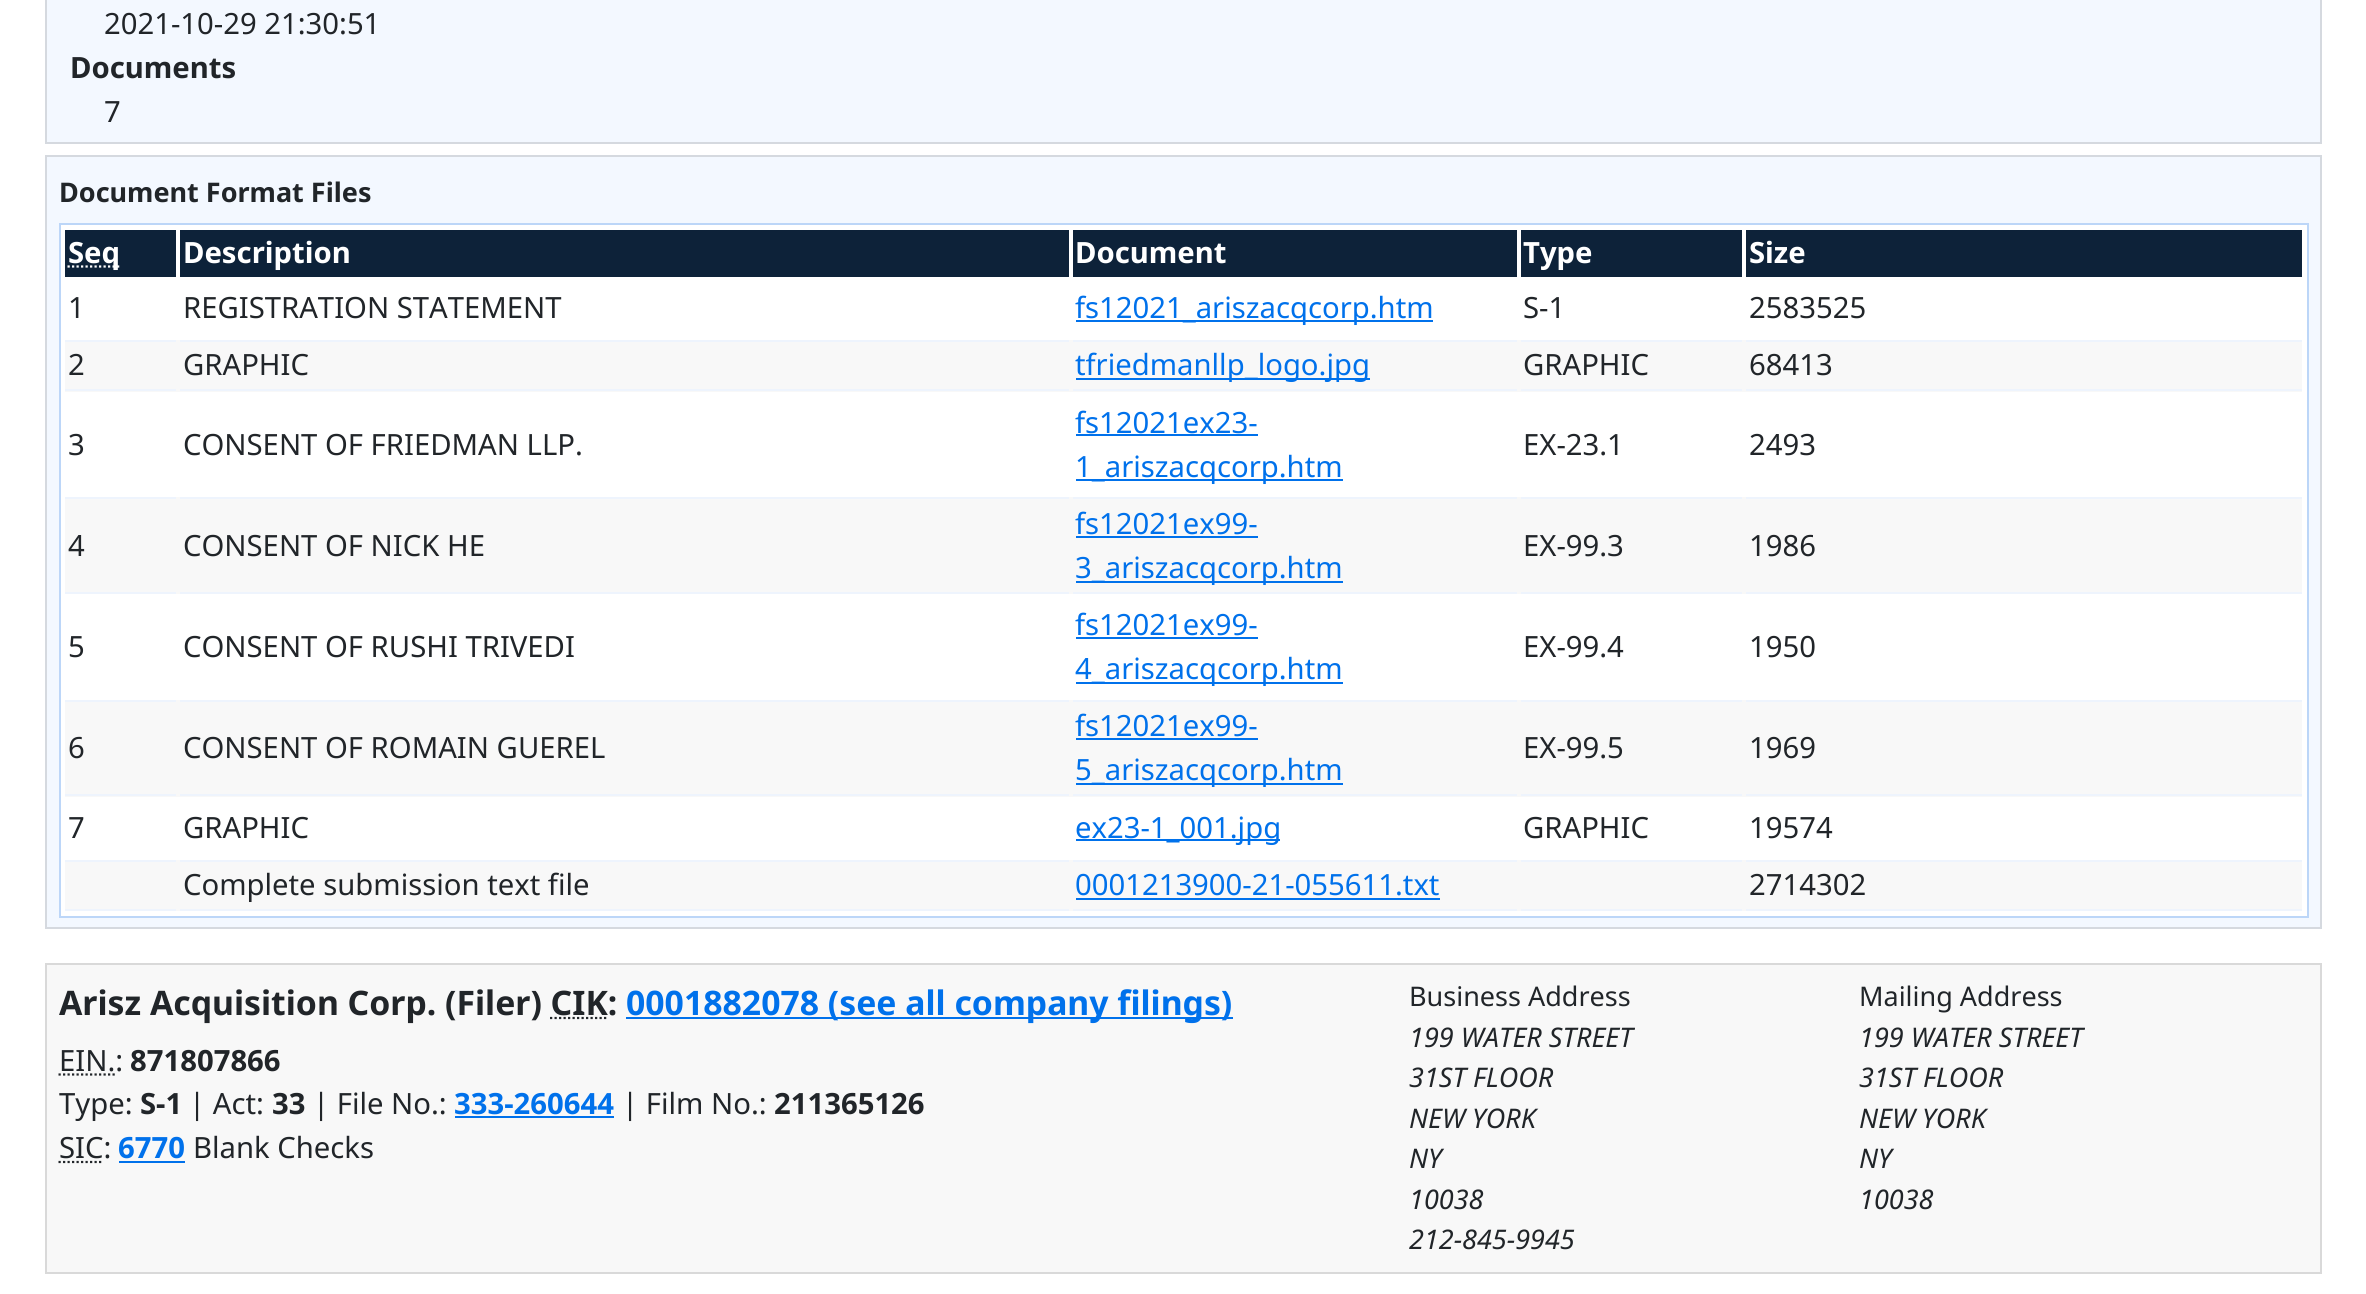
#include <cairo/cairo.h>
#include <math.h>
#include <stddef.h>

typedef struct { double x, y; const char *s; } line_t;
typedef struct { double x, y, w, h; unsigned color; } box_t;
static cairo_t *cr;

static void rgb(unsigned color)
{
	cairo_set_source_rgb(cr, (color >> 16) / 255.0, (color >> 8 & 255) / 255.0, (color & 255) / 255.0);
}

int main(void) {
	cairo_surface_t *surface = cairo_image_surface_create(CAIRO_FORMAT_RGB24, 2366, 1294);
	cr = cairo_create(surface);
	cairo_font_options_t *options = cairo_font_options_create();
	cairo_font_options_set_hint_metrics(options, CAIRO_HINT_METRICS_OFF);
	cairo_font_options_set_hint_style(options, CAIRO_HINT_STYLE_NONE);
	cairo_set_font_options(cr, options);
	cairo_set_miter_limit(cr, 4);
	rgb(0xffffff);
	cairo_paint(cr);
	rgb(0xf3f8ff);
	cairo_rectangle(cr, 46, -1, 2275, 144);
	cairo_fill_preserve(cr);
	rgb(0xd5d9df);
	cairo_stroke(cr);
	rgb(0xf3f8ff);
	cairo_rectangle(cr, 46, 156, 2275, 772);
	cairo_fill_preserve(cr);
	rgb(0xd5d9df);
	cairo_stroke(cr);
	rgb(0xffffff);
	cairo_rectangle(cr, 60, 224, 2248, 693);
	cairo_fill_preserve(cr);
	rgb(0xbcd6f8);
	cairo_stroke(cr);
	rgb(0x0d2239);
	cairo_rectangle(cr, 65, 230, 111, 47);
	cairo_fill(cr);
	cairo_new_path(cr);
	cairo_move_to(cr, 67.5, 266.5);
	cairo_line_to(cr, 119.5, 266.5);
	rgb(0xffffff);
	cairo_set_line_width(cr, 2.2);
	cairo_set_dash(cr, (double[]){2.25, 2.25}, 2, 0);
	cairo_stroke(cr);
	{
		static const box_t items[] = {
			{180, 230, 889, 47, 0x0d2239},
			{1073, 230, 444, 47, 0x0d2239},
			{1521, 230, 221, 47, 0x0d2239},
			{1746, 230, 556, 47, 0x0d2239},
			{1076, 320, 357, 2, 0x0071eb},
			{65, 340, 2237, 52, 0xf8f8f8},
			{65, 340, 111, 2, 0xeef4fd},
			{65, 389, 111, 2, 0xeef4fd},
			{180, 340, 889, 2, 0xeef4fd},
			{180, 389, 889, 2, 0xeef4fd},
			{1073, 340, 444, 2, 0xeef4fd},
			{1073, 389, 444, 2, 0xeef4fd},
			{1076, 378, 294, 2, 0x0071eb},
			{1521, 340, 221, 2, 0xeef4fd},
			{1521, 389, 221, 2, 0xeef4fd},
			{1746, 340, 556, 2, 0xeef4fd},
			{1746, 389, 556, 2, 0xeef4fd},
			{1076, 434, 182, 2, 0x0071eb},
			{1076, 479, 267, 2, 0x0071eb},
			{65, 497, 2237, 97, 0xf8f8f8},
			{65, 497, 111, 2, 0xeef4fd},
			{65, 592, 111, 2, 0xeef4fd},
			{180, 497, 889, 2, 0xeef4fd},
			{180, 592, 889, 2, 0xeef4fd},
			{1073, 497, 444, 2, 0xeef4fd},
			{1073, 592, 444, 2, 0xeef4fd},
			{1076, 536, 182, 2, 0x0071eb},
			{1076, 581, 267, 2, 0x0071eb},
			{1521, 497, 221, 2, 0xeef4fd},
			{1521, 592, 221, 2, 0xeef4fd},
			{1746, 497, 556, 2, 0xeef4fd},
			{1746, 592, 556, 2, 0xeef4fd},
			{1076, 637, 182, 2, 0x0071eb},
			{1076, 682, 267, 2, 0x0071eb},
			{65, 700, 2237, 97, 0xf8f8f8},
			{65, 700, 111, 2, 0xeef4fd},
			{65, 794, 111, 2, 0xeef4fd},
			{180, 700, 889, 2, 0xeef4fd},
			{180, 794, 889, 2, 0xeef4fd},
			{1073, 700, 444, 2, 0xeef4fd},
			{1073, 794, 444, 2, 0xeef4fd},
			{1076, 738, 182, 2, 0x0071eb},
			{1076, 783, 267, 2, 0x0071eb},
			{1521, 700, 221, 2, 0xeef4fd},
			{1521, 794, 221, 2, 0xeef4fd},
			{1746, 700, 556, 2, 0xeef4fd},
			{1746, 794, 556, 2, 0xeef4fd},
			{1076, 839, 204, 2, 0x0071eb},
			{65, 860, 2237, 51, 0xf8f8f8},
			{65, 860, 111, 2, 0xeef4fd},
			{65, 909, 111, 2, 0xeef4fd},
			{180, 860, 889, 2, 0xeef4fd},
			{180, 909, 889, 2, 0xeef4fd},
			{1073, 860, 444, 2, 0xeef4fd},
			{1073, 909, 444, 2, 0xeef4fd},
			{1076, 898, 364, 2, 0x0071eb},
			{1521, 860, 221, 2, 0xeef4fd},
			{1521, 909, 221, 2, 0xeef4fd},
			{1746, 860, 556, 2, 0xeef4fd},
			{1746, 909, 556, 2, 0xeef4fd},
		};
		for (size_t i = 0; i < sizeof items / sizeof *items; i++) {
			rgb(items[i].color);
			cairo_rectangle(cr, items[i].x, items[i].y, items[i].w, items[i].h);
			cairo_fill(cr);
		}
	}
	rgb(0xf8f8f8);
	cairo_rectangle(cr, 46, 964, 2275, 309);
	cairo_fill_preserve(cr);
	rgb(0xd9d9d9);
	cairo_set_line_width(cr, 2);
	cairo_set_dash(cr, NULL, 0, 0);
	cairo_stroke(cr);
	rgb(0x0071eb);
	cairo_rectangle(cr, 626, 1017, 607, 2);
	cairo_fill(cr);
	cairo_new_path(cr);
	cairo_move_to(cr, 550, 1018);
	cairo_line_to(cr, 607.5, 1018);
	rgb(0x212529);
	cairo_set_line_width(cr, 2.2);
	cairo_set_dash(cr, (double[]){2.25, 2.25}, 2, 0);
	cairo_stroke(cr);
	cairo_new_path(cr);
	cairo_move_to(cr, 58.5, 1074.5);
	cairo_line_to(cr, 115, 1074.5);
	cairo_stroke(cr);
	rgb(0x0071eb);
	cairo_rectangle(cr, 455, 1116, 159, 2);
	cairo_fill(cr);
	cairo_new_path(cr);
	cairo_move_to(cr, 58.5, 1162);
	cairo_line_to(cr, 103, 1162);
	rgb(0x212529);
	cairo_stroke(cr);
	rgb(0x0071eb);
	cairo_rectangle(cr, 119, 1161, 66, 2);
	cairo_fill(cr);
	cairo_select_font_face(cr, "Noto Sans", CAIRO_FONT_SLANT_NORMAL, CAIRO_FONT_WEIGHT_NORMAL);
	cairo_set_font_size(cr, 29.25);
	rgb(0x212529);
	cairo_move_to(cr, 104, 34);
	cairo_show_text(cr, "2021-10-29 21:30:51");
	cairo_select_font_face(cr, "Noto Sans", CAIRO_FONT_SLANT_NORMAL, CAIRO_FONT_WEIGHT_BOLD);
	cairo_move_to(cr, 70, 78);
	cairo_show_text(cr, "Documents");
	cairo_select_font_face(cr, "Noto Sans", CAIRO_FONT_SLANT_NORMAL, CAIRO_FONT_WEIGHT_NORMAL);
	cairo_move_to(cr, 104, 122);
	cairo_show_text(cr, "7");
	cairo_select_font_face(cr, "Noto Sans", CAIRO_FONT_SLANT_NORMAL, CAIRO_FONT_WEIGHT_BOLD);
	cairo_set_font_size(cr, 27);
	cairo_move_to(cr, 59, 202);
	cairo_show_text(cr, "Document Format Files");
	cairo_set_font_size(cr, 29.25);
	rgb(0xffffff);
	{
		static const line_t items[] = {
			{68, 263, "Seq"},
			{183, 263, "Description"},
			{1075, 263, "Document"},
			{1523, 263, "Type"},
			{1749, 263, "Size"},
		};
		for (size_t i = 0; i < sizeof items / sizeof *items; i++) {
			cairo_move_to(cr, items[i].x, items[i].y);
			cairo_show_text(cr, items[i].s);
		}
	}
	cairo_select_font_face(cr, "Noto Sans", CAIRO_FONT_SLANT_NORMAL, CAIRO_FONT_WEIGHT_NORMAL);
	rgb(0x212529);
	cairo_move_to(cr, 68, 318);
	cairo_show_text(cr, "1");
	cairo_move_to(cr, 183, 318);
	cairo_show_text(cr, "REGISTRATION STATEMENT");
	rgb(0x0071eb);
	cairo_move_to(cr, 1075, 318);
	cairo_show_text(cr, "fs12021_ariszacqcorp.htm");
	rgb(0x212529);
	{
		static const line_t items[] = {
			{1523, 318, "S-1"},
			{1749, 318, "2583525"},
			{68, 375, "2"},
			{183, 375, "GRAPHIC"},
		};
		for (size_t i = 0; i < sizeof items / sizeof *items; i++) {
			cairo_move_to(cr, items[i].x, items[i].y);
			cairo_show_text(cr, items[i].s);
		}
	}
	rgb(0x0071eb);
	cairo_move_to(cr, 1075, 375);
	cairo_show_text(cr, "tfriedmanllp_logo.jpg");
	rgb(0x212529);
	{
		static const line_t items[] = {
			{1523, 375, "GRAPHIC"},
			{1749, 375, "68413"},
			{68, 455, "3"},
			{183, 455, "CONSENT OF FRIEDMAN LLP."},
		};
		for (size_t i = 0; i < sizeof items / sizeof *items; i++) {
			cairo_move_to(cr, items[i].x, items[i].y);
			cairo_show_text(cr, items[i].s);
		}
	}
	rgb(0x0071eb);
	cairo_move_to(cr, 1075, 433);
	cairo_show_text(cr, "fs12021ex23-");
	cairo_move_to(cr, 1075, 477);
	cairo_show_text(cr, "1_ariszacqcorp.htm");
	rgb(0x212529);
	{
		static const line_t items[] = {
			{1523, 455, "EX-23.1"},
			{1749, 455, "2493"},
			{68, 556, "4"},
			{183, 556, "CONSENT OF NICK HE"},
		};
		for (size_t i = 0; i < sizeof items / sizeof *items; i++) {
			cairo_move_to(cr, items[i].x, items[i].y);
			cairo_show_text(cr, items[i].s);
		}
	}
	rgb(0x0071eb);
	cairo_move_to(cr, 1075, 534);
	cairo_show_text(cr, "fs12021ex99-");
	cairo_move_to(cr, 1075, 578);
	cairo_show_text(cr, "3_ariszacqcorp.htm");
	rgb(0x212529);
	{
		static const line_t items[] = {
			{1523, 556, "EX-99.3"},
			{1749, 556, "1986"},
			{68, 657, "5"},
			{183, 657, "CONSENT OF RUSHI TRIVEDI"},
		};
		for (size_t i = 0; i < sizeof items / sizeof *items; i++) {
			cairo_move_to(cr, items[i].x, items[i].y);
			cairo_show_text(cr, items[i].s);
		}
	}
	rgb(0x0071eb);
	cairo_move_to(cr, 1075, 635);
	cairo_show_text(cr, "fs12021ex99-");
	cairo_move_to(cr, 1075, 679);
	cairo_show_text(cr, "4_ariszacqcorp.htm");
	rgb(0x212529);
	{
		static const line_t items[] = {
			{1523, 657, "EX-99.4"},
			{1749, 657, "1950"},
			{68, 758, "6"},
			{183, 758, "CONSENT OF ROMAIN GUEREL"},
		};
		for (size_t i = 0; i < sizeof items / sizeof *items; i++) {
			cairo_move_to(cr, items[i].x, items[i].y);
			cairo_show_text(cr, items[i].s);
		}
	}
	rgb(0x0071eb);
	cairo_move_to(cr, 1075, 736);
	cairo_show_text(cr, "fs12021ex99-");
	cairo_move_to(cr, 1075, 780);
	cairo_show_text(cr, "5_ariszacqcorp.htm");
	rgb(0x212529);
	{
		static const line_t items[] = {
			{1523, 758, "EX-99.5"},
			{1749, 758, "1969"},
			{68, 838, "7"},
			{183, 838, "GRAPHIC"},
		};
		for (size_t i = 0; i < sizeof items / sizeof *items; i++) {
			cairo_move_to(cr, items[i].x, items[i].y);
			cairo_show_text(cr, items[i].s);
		}
	}
	rgb(0x0071eb);
	cairo_move_to(cr, 1075, 838);
	cairo_show_text(cr, "ex23-1_001.jpg");
	rgb(0x212529);
	{
		static const line_t items[] = {
			{1523, 838, "GRAPHIC"},
			{1749, 838, "19574"},
			{183, 895, "Complete submission text file"},
		};
		for (size_t i = 0; i < sizeof items / sizeof *items; i++) {
			cairo_move_to(cr, items[i].x, items[i].y);
			cairo_show_text(cr, items[i].s);
		}
	}
	rgb(0x0071eb);
	cairo_move_to(cr, 1075, 895);
	cairo_show_text(cr, "0001213900-21-055611.txt");
	rgb(0x212529);
	cairo_move_to(cr, 1749, 895);
	cairo_show_text(cr, "2714302");
	cairo_select_font_face(cr, "Noto Sans", CAIRO_FONT_SLANT_NORMAL, CAIRO_FONT_WEIGHT_BOLD);
	cairo_set_font_size(cr, 33.75);
	cairo_move_to(cr, 59, 1015);
	cairo_show_text(cr, "Arisz Acquisition Corp. (Filer) CIK:");
	rgb(0x0071eb);
	cairo_move_to(cr, 626, 1015);
	cairo_show_text(cr, "0001882078 (see all company filings)");
	cairo_select_font_face(cr, "Noto Sans", CAIRO_FONT_SLANT_NORMAL, CAIRO_FONT_WEIGHT_NORMAL);
	cairo_set_font_size(cr, 29.25);
	rgb(0x212529);
	cairo_move_to(cr, 59, 1071);
	cairo_show_text(cr, "EIN.:");
	cairo_select_font_face(cr, "Noto Sans", CAIRO_FONT_SLANT_NORMAL, CAIRO_FONT_WEIGHT_BOLD);
	cairo_move_to(cr, 130, 1071);
	cairo_show_text(cr, "871807866");
	cairo_select_font_face(cr, "Noto Sans", CAIRO_FONT_SLANT_NORMAL, CAIRO_FONT_WEIGHT_NORMAL);
	cairo_move_to(cr, 59, 1114);
	cairo_show_text(cr, "Type:");
	cairo_select_font_face(cr, "Noto Sans", CAIRO_FONT_SLANT_NORMAL, CAIRO_FONT_WEIGHT_BOLD);
	cairo_move_to(cr, 140, 1114);
	cairo_show_text(cr, "S-1");
	cairo_select_font_face(cr, "Noto Sans", CAIRO_FONT_SLANT_NORMAL, CAIRO_FONT_WEIGHT_NORMAL);
	cairo_move_to(cr, 189, 1114);
	cairo_show_text(cr, "| Act:");
	cairo_select_font_face(cr, "Noto Sans", CAIRO_FONT_SLANT_NORMAL, CAIRO_FONT_WEIGHT_BOLD);
	cairo_move_to(cr, 272, 1114);
	cairo_show_text(cr, "33");
	cairo_select_font_face(cr, "Noto Sans", CAIRO_FONT_SLANT_NORMAL, CAIRO_FONT_WEIGHT_NORMAL);
	cairo_move_to(cr, 313, 1114);
	cairo_show_text(cr, "| File No.:");
	cairo_select_font_face(cr, "Noto Sans", CAIRO_FONT_SLANT_NORMAL, CAIRO_FONT_WEIGHT_BOLD);
	rgb(0x0071eb);
	cairo_move_to(cr, 454, 1114);
	cairo_show_text(cr, "333-260644");
	cairo_select_font_face(cr, "Noto Sans", CAIRO_FONT_SLANT_NORMAL, CAIRO_FONT_WEIGHT_NORMAL);
	rgb(0x212529);
	cairo_move_to(cr, 622, 1114);
	cairo_show_text(cr, "| Film No.:");
	cairo_select_font_face(cr, "Noto Sans", CAIRO_FONT_SLANT_NORMAL, CAIRO_FONT_WEIGHT_BOLD);
	cairo_move_to(cr, 774, 1114);
	cairo_show_text(cr, "211365126");
	cairo_select_font_face(cr, "Noto Sans", CAIRO_FONT_SLANT_NORMAL, CAIRO_FONT_WEIGHT_NORMAL);
	cairo_move_to(cr, 59, 1158);
	cairo_show_text(cr, "SIC:");
	cairo_select_font_face(cr, "Noto Sans", CAIRO_FONT_SLANT_NORMAL, CAIRO_FONT_WEIGHT_BOLD);
	rgb(0x0071eb);
	cairo_move_to(cr, 118, 1158);
	cairo_show_text(cr, "6770");
	cairo_select_font_face(cr, "Noto Sans", CAIRO_FONT_SLANT_NORMAL, CAIRO_FONT_WEIGHT_NORMAL);
	rgb(0x212529);
	cairo_move_to(cr, 193, 1158);
	cairo_show_text(cr, "Blank Checks");
	cairo_set_font_size(cr, 27);
	cairo_move_to(cr, 1409, 1006);
	cairo_show_text(cr, "Business Address");
	cairo_select_font_face(cr, "Noto Sans", CAIRO_FONT_SLANT_ITALIC, CAIRO_FONT_WEIGHT_NORMAL);
	{
		static const line_t items[] = {
			{1409, 1047, "199 WATER STREET"},
			{1409, 1087, "31ST FLOOR"},
			{1409, 1128, "NEW YORK"},
			{1409, 1168, "NY"},
			{1409, 1209, "10038"},
			{1409, 1249, "212-845-9945"},
		};
		for (size_t i = 0; i < sizeof items / sizeof *items; i++) {
			cairo_move_to(cr, items[i].x, items[i].y);
			cairo_show_text(cr, items[i].s);
		}
	}
	cairo_select_font_face(cr, "Noto Sans", CAIRO_FONT_SLANT_NORMAL, CAIRO_FONT_WEIGHT_NORMAL);
	cairo_move_to(cr, 1859, 1006);
	cairo_show_text(cr, "Mailing Address");
	cairo_select_font_face(cr, "Noto Sans", CAIRO_FONT_SLANT_ITALIC, CAIRO_FONT_WEIGHT_NORMAL);
	{
		static const line_t items[] = {
			{1859, 1047, "199 WATER STREET"},
			{1859, 1087, "31ST FLOOR"},
			{1859, 1128, "NEW YORK"},
			{1859, 1168, "NY"},
			{1859, 1209, "10038"},
		};
		for (size_t i = 0; i < sizeof items / sizeof *items; i++) {
			cairo_move_to(cr, items[i].x, items[i].y);
			cairo_show_text(cr, items[i].s);
		}
	}
	cairo_surface_write_to_png(surface, "page.png");
	cairo_font_options_destroy(options);
	cairo_destroy(cr);
	cairo_surface_destroy(surface);
	return 0;
}
